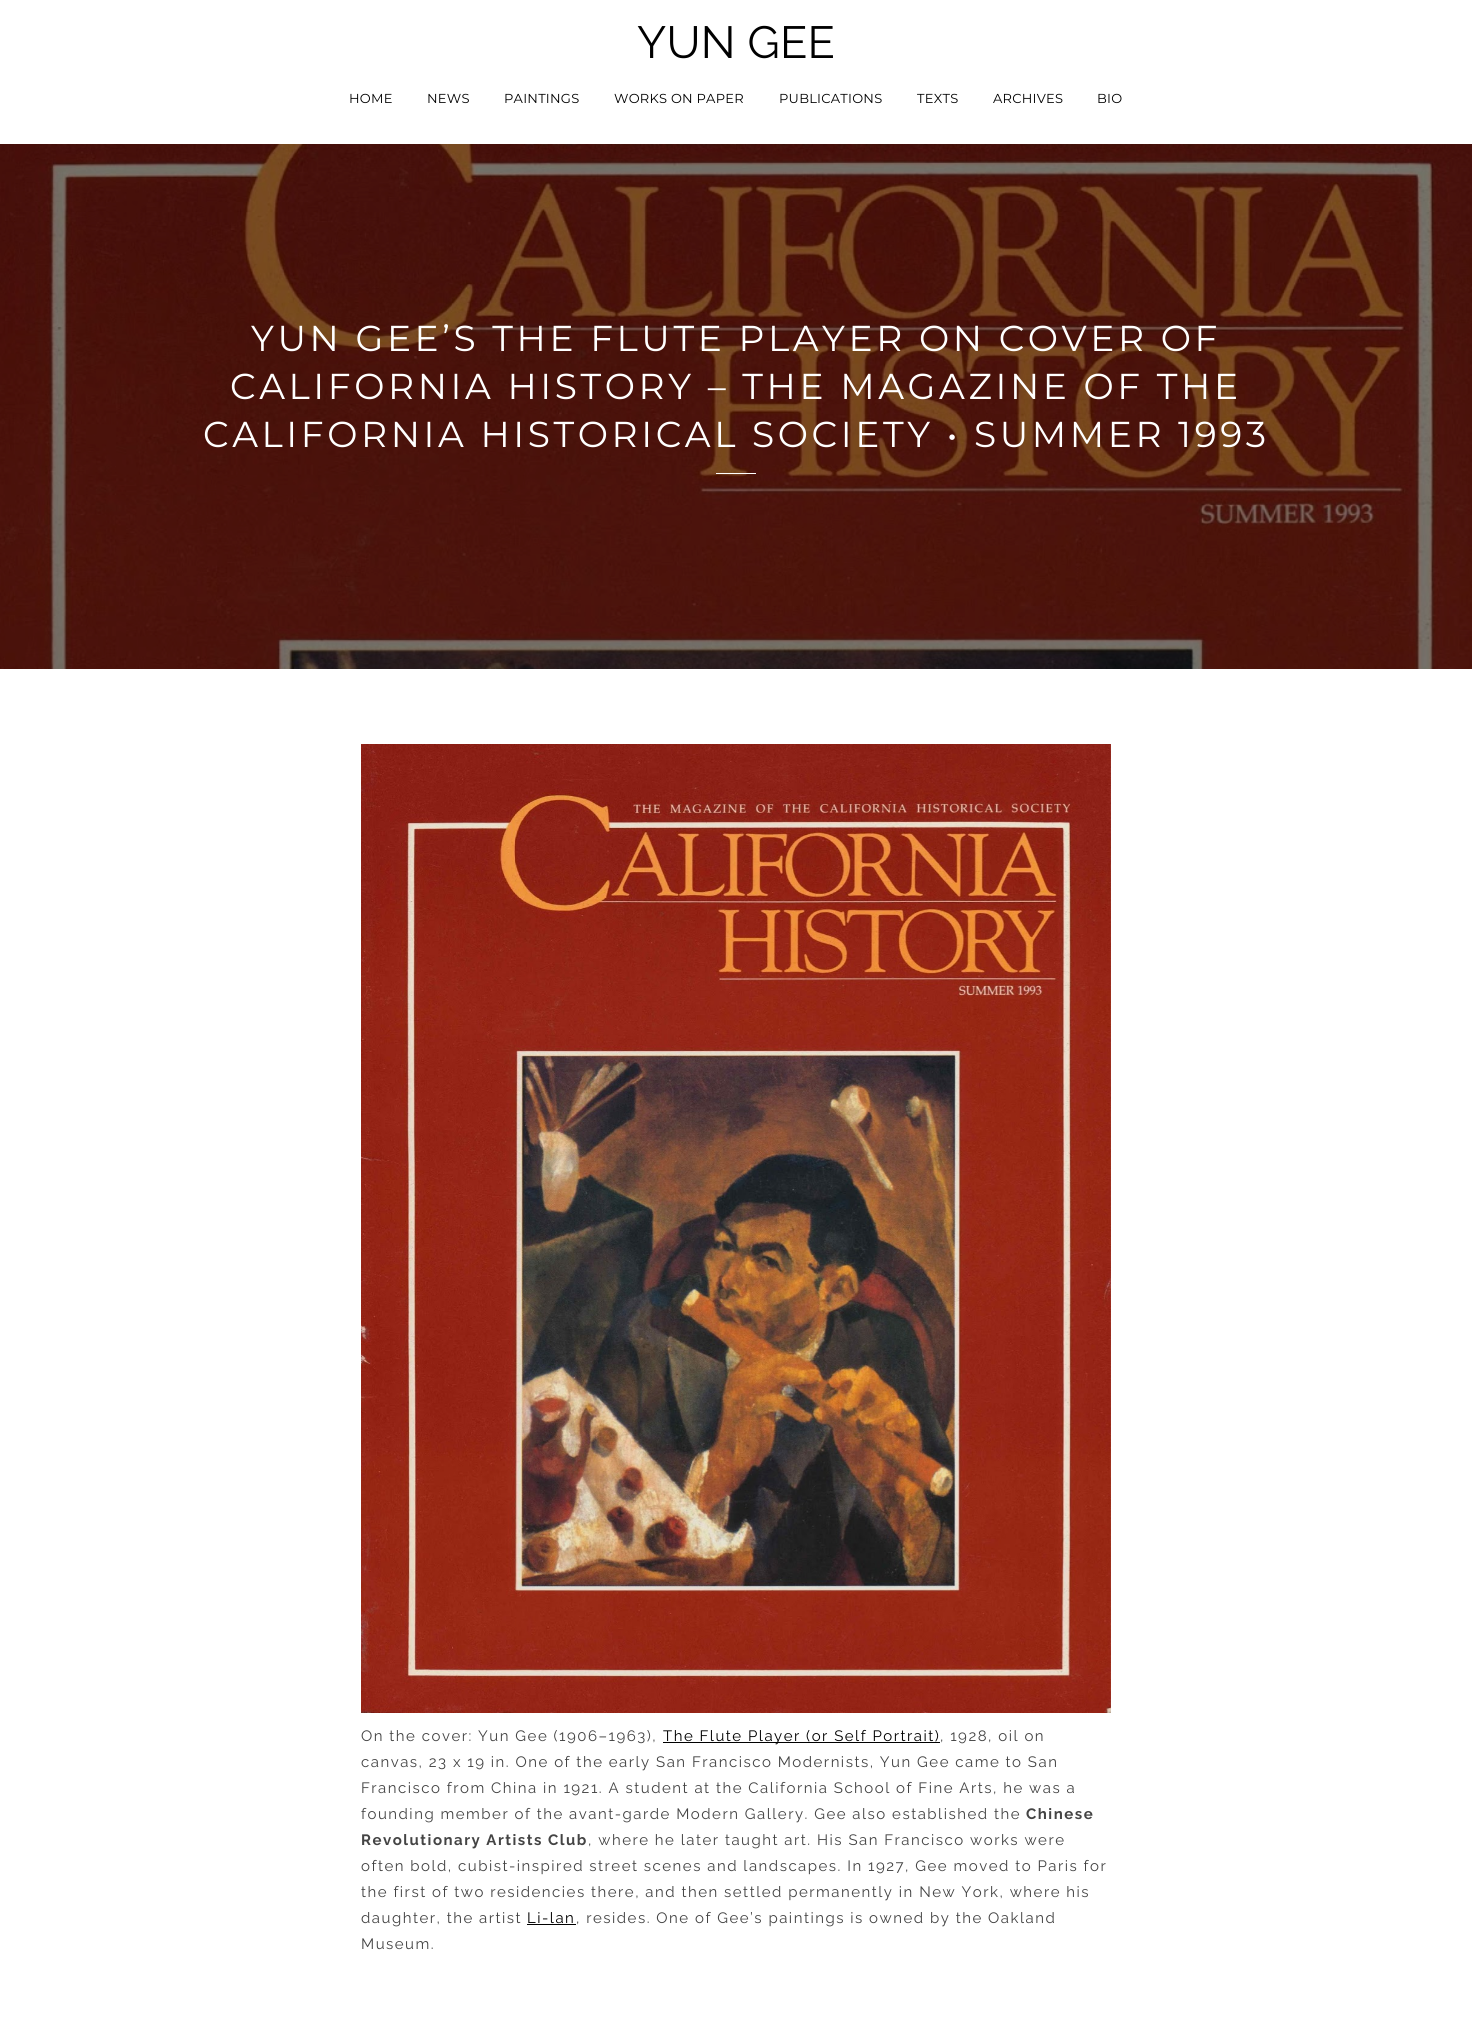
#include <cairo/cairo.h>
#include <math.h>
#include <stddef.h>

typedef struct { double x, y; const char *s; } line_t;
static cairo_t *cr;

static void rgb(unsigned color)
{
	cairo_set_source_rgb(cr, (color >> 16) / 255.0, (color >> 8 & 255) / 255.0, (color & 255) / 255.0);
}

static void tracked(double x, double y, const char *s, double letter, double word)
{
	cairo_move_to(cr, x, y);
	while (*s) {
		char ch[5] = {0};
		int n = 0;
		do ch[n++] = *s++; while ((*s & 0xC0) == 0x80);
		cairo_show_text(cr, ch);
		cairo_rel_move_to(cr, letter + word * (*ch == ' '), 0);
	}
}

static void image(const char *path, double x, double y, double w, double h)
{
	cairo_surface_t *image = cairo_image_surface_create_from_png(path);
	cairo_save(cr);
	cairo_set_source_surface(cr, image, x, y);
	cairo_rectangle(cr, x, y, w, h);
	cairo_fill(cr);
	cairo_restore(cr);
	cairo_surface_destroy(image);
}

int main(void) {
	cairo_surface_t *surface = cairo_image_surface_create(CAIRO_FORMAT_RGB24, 1472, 2020);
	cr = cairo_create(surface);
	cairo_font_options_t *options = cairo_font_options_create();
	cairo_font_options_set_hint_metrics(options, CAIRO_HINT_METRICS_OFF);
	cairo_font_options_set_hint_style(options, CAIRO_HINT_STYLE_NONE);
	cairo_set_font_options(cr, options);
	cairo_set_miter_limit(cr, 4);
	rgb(0xffffff);
	cairo_paint(cr);
	image("img/1.png", 0, 144, 1472, 525);
	rgb(0xffffff);
	cairo_rectangle(cr, 716, 473, 40, 1);
	cairo_fill(cr);
	image("img/2.png", 361, 744, 750, 969);
	rgb(0x000000);
	cairo_rectangle(cr, 663, 1742, 277, 1);
	cairo_fill(cr);
	cairo_rectangle(cr, 527, 1924, 49, 1);
	cairo_fill(cr);
	cairo_select_font_face(cr, "Raleway", CAIRO_FONT_SLANT_NORMAL, CAIRO_FONT_WEIGHT_NORMAL);
	cairo_set_font_size(cr, 45);
	tracked(637, 58, "YUN GEE", 0.25, 0);
	cairo_select_font_face(cr, "Montserrat", CAIRO_FONT_SLANT_NORMAL, CAIRO_FONT_WEIGHT_NORMAL);
	cairo_set_font_size(cr, 13);
	{
		static const line_t items[] = {
			{349, 103, "HOME"},
			{427, 103, "NEWS"},
			{504, 103, "PAINTINGS"},
			{614, 103, "WORKS ON PAPER"},
			{779, 103, "PUBLICATIONS"},
			{917, 103, "TEXTS"},
			{993, 103, "ARCHIVES"},
			{1097, 103, "BIO"},
		};
		for (size_t i = 0; i < sizeof items / sizeof *items; i++) {
			tracked(items[i].x, items[i].y, items[i].s, 0.25, 0);
		}
	}
	cairo_set_font_size(cr, 36);
	rgb(0xffffff);
	{
		static const line_t items[] = {
			{251, 351, "YUN GEE’S THE FLUTE PLAYER ON COVER OF"},
			{230, 399, "CALIFORNIA HISTORY – THE MAGAZINE OF THE"},
			{203, 447, "CALIFORNIA HISTORICAL SOCIETY • SUMMER 1993"},
		};
		for (size_t i = 0; i < sizeof items / sizeof *items; i++) {
			tracked(items[i].x, items[i].y, items[i].s, 3.6, 0);
		}
	}
	cairo_select_font_face(cr, "Raleway", CAIRO_FONT_SLANT_NORMAL, CAIRO_FONT_WEIGHT_NORMAL);
	cairo_set_font_size(cr, 15);
	rgb(0x444444);
	tracked(361, 1741, "On the cover: Yun Gee (1906–1963),", 1.5, 0);
	rgb(0x000000);
	tracked(663, 1741, "The Flute Player (or Self Portrait)", 1.5, 0);
	rgb(0x444444);
	{
		static const line_t items[] = {
			{940, 1741, ", 1928, oil on"},
			{361, 1767, "canvas, 23 x 19 in. One of the early San Francisco Modernists, Yun Gee came to San"},
			{361, 1793, "Francisco from China in 1921. A student at the California School of Fine Arts, he was a"},
			{361, 1819, "founding member of the avant-garde Modern Gallery. Gee also established the"},
		};
		for (size_t i = 0; i < sizeof items / sizeof *items; i++) {
			tracked(items[i].x, items[i].y, items[i].s, 1.5, 0);
		}
	}
	cairo_select_font_face(cr, "Raleway", CAIRO_FONT_SLANT_NORMAL, CAIRO_FONT_WEIGHT_BOLD);
	tracked(1026, 1819, "Chinese", 1.5, 0);
	tracked(361, 1845, "Revolutionary Artists Club", 1.5, 0);
	cairo_select_font_face(cr, "Raleway", CAIRO_FONT_SLANT_NORMAL, CAIRO_FONT_WEIGHT_NORMAL);
	{
		static const line_t items[] = {
			{588, 1845, ", where he later taught art. His San Francisco works were"},
			{361, 1871, "often bold, cubist-inspired street scenes and landscapes. In 1927, Gee moved to Paris for"},
			{361, 1897, "the first of two residencies there, and then settled permanently in New York, where his"},
			{361, 1923, "daughter, the artist"},
		};
		for (size_t i = 0; i < sizeof items / sizeof *items; i++) {
			tracked(items[i].x, items[i].y, items[i].s, 1.5, 0);
		}
	}
	rgb(0x000000);
	tracked(527, 1923, "Li-lan", 1.5, 0);
	rgb(0x444444);
	tracked(576, 1923, ", resides. One of Gee’s paintings is owned by the Oakland", 1.5, 0);
	tracked(361, 1949, "Museum.", 1.5, 0);
	cairo_surface_write_to_png(surface, "page.png");
	cairo_font_options_destroy(options);
	cairo_destroy(cr);
	cairo_surface_destroy(surface);
	return 0;
}
